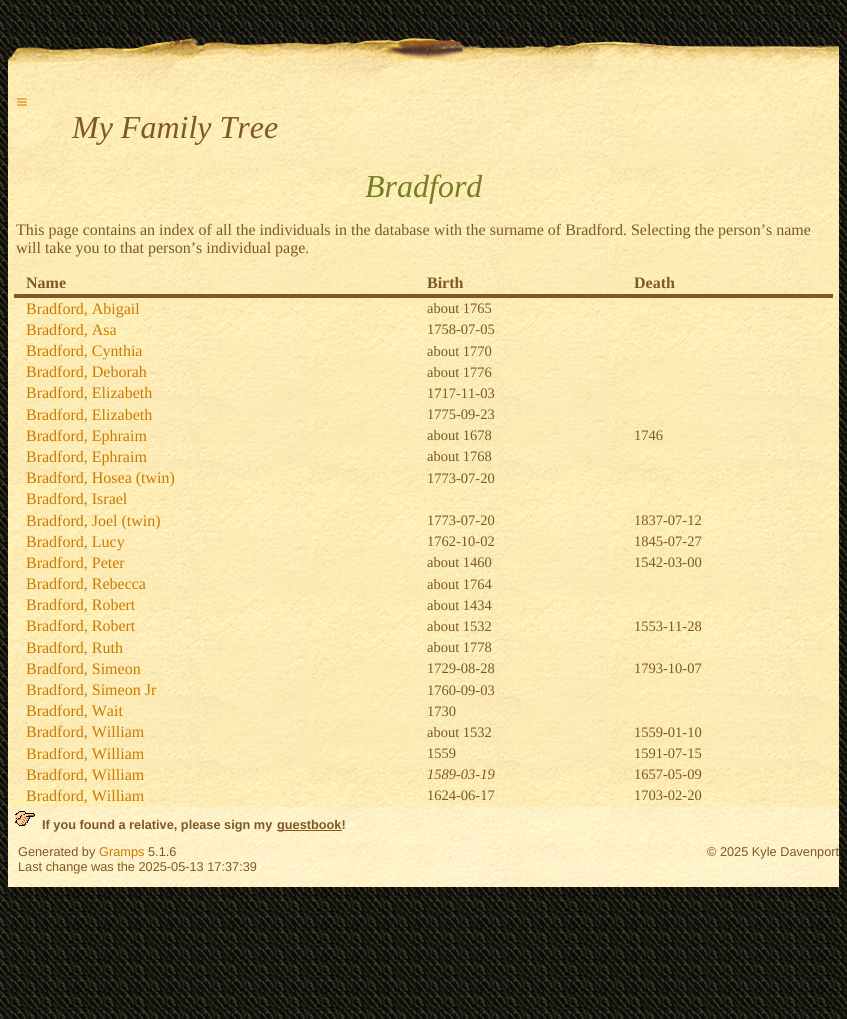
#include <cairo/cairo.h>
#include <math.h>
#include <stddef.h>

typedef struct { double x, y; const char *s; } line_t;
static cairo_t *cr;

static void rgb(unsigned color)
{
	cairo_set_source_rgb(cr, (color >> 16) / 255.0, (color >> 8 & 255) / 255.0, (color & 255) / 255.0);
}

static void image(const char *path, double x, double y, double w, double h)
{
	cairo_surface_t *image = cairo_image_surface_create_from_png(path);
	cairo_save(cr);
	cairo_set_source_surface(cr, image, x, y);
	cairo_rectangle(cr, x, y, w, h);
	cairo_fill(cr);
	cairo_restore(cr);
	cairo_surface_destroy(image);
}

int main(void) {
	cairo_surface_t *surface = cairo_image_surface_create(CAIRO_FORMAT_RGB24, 847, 1019);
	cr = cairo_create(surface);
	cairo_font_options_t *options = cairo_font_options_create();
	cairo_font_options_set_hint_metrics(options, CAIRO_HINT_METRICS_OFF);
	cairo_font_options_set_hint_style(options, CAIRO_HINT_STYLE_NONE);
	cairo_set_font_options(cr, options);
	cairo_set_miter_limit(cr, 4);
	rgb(0xffffff);
	cairo_paint(cr);
	image("img/1.png", 0, 0, 847, 1019);
	image("img/2.png", 8, 38, 831, 130);
	image("img/3.png", 8, 168, 831, 639);
	rgb(0x7d5925);
	cairo_rectangle(cr, 14, 294, 819, 4);
	cairo_fill(cr);
	image("img/4.png", 8, 832, 831, 55);
	image("img/5.png", 8, 807, 831, 25);
	image("img/6.png", 15, 811, 20, 15);
	cairo_rectangle(cr, 277, 830, 65, 1);
	cairo_fill(cr);
	image("img/7.png", 18, 844, 416, 30);
	image("img/8.png", 507, 844, 332, 15);
	cairo_select_font_face(cr, "Liberation Serif", CAIRO_FONT_SLANT_NORMAL, CAIRO_FONT_WEIGHT_NORMAL);
	cairo_set_font_size(cr, 21);
	rgb(0xcc7900);
	cairo_move_to(cr, 16, 109);
	cairo_show_text(cr, "≡");
	cairo_select_font_face(cr, "Liberation Serif", CAIRO_FONT_SLANT_ITALIC, CAIRO_FONT_WEIGHT_NORMAL);
	cairo_set_font_size(cr, 32);
	rgb(0x7d5925);
	cairo_move_to(cr, 72, 138);
	cairo_show_text(cr, "My Family Tree");
	rgb(0x767d25);
	cairo_move_to(cr, 365, 197);
	cairo_show_text(cr, "Bradford");
	cairo_select_font_face(cr, "Liberation Serif", CAIRO_FONT_SLANT_NORMAL, CAIRO_FONT_WEIGHT_NORMAL);
	cairo_set_font_size(cr, 16);
	rgb(0x7d5925);
	cairo_move_to(cr, 16, 235);
	cairo_show_text(cr, "This page contains an index of all the individuals in the database with the surname of Bradford. Selecting the person’s name");
	cairo_move_to(cr, 16, 253);
	cairo_show_text(cr, "will take you to that person’s individual page.");
	cairo_select_font_face(cr, "Liberation Serif", CAIRO_FONT_SLANT_NORMAL, CAIRO_FONT_WEIGHT_BOLD);
	{
		static const line_t items[] = {
			{26, 288, "Name"},
			{427, 288, "Birth"},
			{634, 288, "Death"},
		};
		for (size_t i = 0; i < sizeof items / sizeof *items; i++) {
			cairo_move_to(cr, items[i].x, items[i].y);
			cairo_show_text(cr, items[i].s);
		}
	}
	cairo_select_font_face(cr, "Liberation Serif", CAIRO_FONT_SLANT_NORMAL, CAIRO_FONT_WEIGHT_NORMAL);
	rgb(0xcc7900);
	cairo_move_to(cr, 26, 314);
	cairo_show_text(cr, "Bradford, Abigail");
	cairo_set_font_size(cr, 14.5);
	rgb(0x7d5925);
	cairo_move_to(cr, 427, 313);
	cairo_show_text(cr, "about 1765");
	cairo_set_font_size(cr, 16);
	rgb(0xcc7900);
	cairo_move_to(cr, 26, 335);
	cairo_show_text(cr, "Bradford, Asa");
	cairo_set_font_size(cr, 14.5);
	rgb(0x7d5925);
	cairo_move_to(cr, 427, 334);
	cairo_show_text(cr, "1758-07-05");
	cairo_set_font_size(cr, 16);
	rgb(0xcc7900);
	cairo_move_to(cr, 26, 356);
	cairo_show_text(cr, "Bradford, Cynthia");
	cairo_set_font_size(cr, 14.5);
	rgb(0x7d5925);
	cairo_move_to(cr, 427, 356);
	cairo_show_text(cr, "about 1770");
	cairo_set_font_size(cr, 16);
	rgb(0xcc7900);
	cairo_move_to(cr, 26, 377);
	cairo_show_text(cr, "Bradford, Deborah");
	cairo_set_font_size(cr, 14.5);
	rgb(0x7d5925);
	cairo_move_to(cr, 427, 377);
	cairo_show_text(cr, "about 1776");
	cairo_set_font_size(cr, 16);
	rgb(0xcc7900);
	cairo_move_to(cr, 26, 398);
	cairo_show_text(cr, "Bradford, Elizabeth");
	cairo_set_font_size(cr, 14.5);
	rgb(0x7d5925);
	cairo_move_to(cr, 427, 398);
	cairo_show_text(cr, "1717-11-03");
	cairo_set_font_size(cr, 16);
	rgb(0xcc7900);
	cairo_move_to(cr, 26, 420);
	cairo_show_text(cr, "Bradford, Elizabeth");
	cairo_set_font_size(cr, 14.5);
	rgb(0x7d5925);
	cairo_move_to(cr, 427, 419);
	cairo_show_text(cr, "1775-09-23");
	cairo_set_font_size(cr, 16);
	rgb(0xcc7900);
	cairo_move_to(cr, 26, 441);
	cairo_show_text(cr, "Bradford, Ephraim");
	cairo_set_font_size(cr, 14.5);
	rgb(0x7d5925);
	cairo_move_to(cr, 427, 440);
	cairo_show_text(cr, "about 1678");
	cairo_move_to(cr, 634, 440);
	cairo_show_text(cr, "1746");
	cairo_set_font_size(cr, 16);
	rgb(0xcc7900);
	cairo_move_to(cr, 26, 462);
	cairo_show_text(cr, "Bradford, Ephraim");
	cairo_set_font_size(cr, 14.5);
	rgb(0x7d5925);
	cairo_move_to(cr, 427, 461);
	cairo_show_text(cr, "about 1768");
	cairo_set_font_size(cr, 16);
	rgb(0xcc7900);
	cairo_move_to(cr, 26, 483);
	cairo_show_text(cr, "Bradford, Hosea (twin)");
	cairo_set_font_size(cr, 14.5);
	rgb(0x7d5925);
	cairo_move_to(cr, 427, 483);
	cairo_show_text(cr, "1773-07-20");
	cairo_set_font_size(cr, 16);
	rgb(0xcc7900);
	cairo_move_to(cr, 26, 504);
	cairo_show_text(cr, "Bradford, Israel");
	cairo_move_to(cr, 26, 526);
	cairo_show_text(cr, "Bradford, Joel (twin)");
	cairo_set_font_size(cr, 14.5);
	rgb(0x7d5925);
	cairo_move_to(cr, 427, 525);
	cairo_show_text(cr, "1773-07-20");
	cairo_move_to(cr, 634, 525);
	cairo_show_text(cr, "1837-07-12");
	cairo_set_font_size(cr, 16);
	rgb(0xcc7900);
	cairo_move_to(cr, 26, 547);
	cairo_show_text(cr, "Bradford, Lucy");
	cairo_set_font_size(cr, 14.5);
	rgb(0x7d5925);
	cairo_move_to(cr, 427, 546);
	cairo_show_text(cr, "1762-10-02");
	cairo_move_to(cr, 634, 546);
	cairo_show_text(cr, "1845-07-27");
	cairo_set_font_size(cr, 16);
	rgb(0xcc7900);
	cairo_move_to(cr, 26, 568);
	cairo_show_text(cr, "Bradford, Peter");
	cairo_set_font_size(cr, 14.5);
	rgb(0x7d5925);
	cairo_move_to(cr, 427, 567);
	cairo_show_text(cr, "about 1460");
	cairo_move_to(cr, 634, 567);
	cairo_show_text(cr, "1542-03-00");
	cairo_set_font_size(cr, 16);
	rgb(0xcc7900);
	cairo_move_to(cr, 26, 589);
	cairo_show_text(cr, "Bradford, Rebecca");
	cairo_set_font_size(cr, 14.5);
	rgb(0x7d5925);
	cairo_move_to(cr, 427, 589);
	cairo_show_text(cr, "about 1764");
	cairo_set_font_size(cr, 16);
	rgb(0xcc7900);
	cairo_move_to(cr, 26, 610);
	cairo_show_text(cr, "Bradford, Robert");
	cairo_set_font_size(cr, 14.5);
	rgb(0x7d5925);
	cairo_move_to(cr, 427, 610);
	cairo_show_text(cr, "about 1434");
	cairo_set_font_size(cr, 16);
	rgb(0xcc7900);
	cairo_move_to(cr, 26, 631);
	cairo_show_text(cr, "Bradford, Robert");
	cairo_set_font_size(cr, 14.5);
	rgb(0x7d5925);
	cairo_move_to(cr, 427, 631);
	cairo_show_text(cr, "about 1532");
	cairo_move_to(cr, 634, 631);
	cairo_show_text(cr, "1553-11-28");
	cairo_set_font_size(cr, 16);
	rgb(0xcc7900);
	cairo_move_to(cr, 26, 653);
	cairo_show_text(cr, "Bradford, Ruth");
	cairo_set_font_size(cr, 14.5);
	rgb(0x7d5925);
	cairo_move_to(cr, 427, 652);
	cairo_show_text(cr, "about 1778");
	cairo_set_font_size(cr, 16);
	rgb(0xcc7900);
	cairo_move_to(cr, 26, 674);
	cairo_show_text(cr, "Bradford, Simeon");
	cairo_set_font_size(cr, 14.5);
	rgb(0x7d5925);
	cairo_move_to(cr, 427, 673);
	cairo_show_text(cr, "1729-08-28");
	cairo_move_to(cr, 634, 673);
	cairo_show_text(cr, "1793-10-07");
	cairo_set_font_size(cr, 16);
	rgb(0xcc7900);
	cairo_move_to(cr, 26, 695);
	cairo_show_text(cr, "Bradford, Simeon Jr");
	cairo_set_font_size(cr, 14.5);
	rgb(0x7d5925);
	cairo_move_to(cr, 427, 695);
	cairo_show_text(cr, "1760-09-03");
	cairo_set_font_size(cr, 16);
	rgb(0xcc7900);
	cairo_move_to(cr, 26, 716);
	cairo_show_text(cr, "Bradford, Wait");
	cairo_set_font_size(cr, 14.5);
	rgb(0x7d5925);
	cairo_move_to(cr, 427, 716);
	cairo_show_text(cr, "1730");
	cairo_set_font_size(cr, 16);
	rgb(0xcc7900);
	cairo_move_to(cr, 26, 737);
	cairo_show_text(cr, "Bradford, William");
	cairo_set_font_size(cr, 14.5);
	rgb(0x7d5925);
	cairo_move_to(cr, 427, 737);
	cairo_show_text(cr, "about 1532");
	cairo_move_to(cr, 634, 737);
	cairo_show_text(cr, "1559-01-10");
	cairo_set_font_size(cr, 16);
	rgb(0xcc7900);
	cairo_move_to(cr, 26, 759);
	cairo_show_text(cr, "Bradford, William");
	cairo_set_font_size(cr, 14.5);
	rgb(0x7d5925);
	cairo_move_to(cr, 427, 758);
	cairo_show_text(cr, "1559");
	cairo_move_to(cr, 634, 758);
	cairo_show_text(cr, "1591-07-15");
	cairo_set_font_size(cr, 16);
	rgb(0xcc7900);
	cairo_move_to(cr, 26, 780);
	cairo_show_text(cr, "Bradford, William");
	cairo_select_font_face(cr, "Liberation Serif", CAIRO_FONT_SLANT_ITALIC, CAIRO_FONT_WEIGHT_NORMAL);
	cairo_set_font_size(cr, 14.5);
	rgb(0x7d5925);
	cairo_move_to(cr, 427, 779);
	cairo_show_text(cr, "1589-03-19");
	cairo_select_font_face(cr, "Liberation Serif", CAIRO_FONT_SLANT_NORMAL, CAIRO_FONT_WEIGHT_NORMAL);
	cairo_move_to(cr, 634, 779);
	cairo_show_text(cr, "1657-05-09");
	cairo_set_font_size(cr, 16);
	rgb(0xcc7900);
	cairo_move_to(cr, 26, 801);
	cairo_show_text(cr, "Bradford, William");
	cairo_set_font_size(cr, 14.5);
	rgb(0x7d5925);
	cairo_move_to(cr, 427, 800);
	cairo_show_text(cr, "1624-06-17");
	cairo_move_to(cr, 634, 800);
	cairo_show_text(cr, "1703-02-20");
	cairo_select_font_face(cr, "Liberation Sans", CAIRO_FONT_SLANT_NORMAL, CAIRO_FONT_WEIGHT_BOLD);
	cairo_set_font_size(cr, 12.75);
	cairo_move_to(cr, 42, 829);
	cairo_show_text(cr, "If you found a relative, please sign my");
	cairo_move_to(cr, 277, 829);
	cairo_show_text(cr, "guestbook!");
	cairo_select_font_face(cr, "Liberation Sans", CAIRO_FONT_SLANT_NORMAL, CAIRO_FONT_WEIGHT_NORMAL);
	cairo_move_to(cr, 18, 856);
	cairo_show_text(cr, "Generated by");
	rgb(0xcc7900);
	cairo_move_to(cr, 99, 856);
	cairo_show_text(cr, "Gramps");
	rgb(0x7d5925);
	{
		static const line_t items[] = {
			{148, 856, "5.1.6"},
			{18, 871, "Last change was the 2025-05-13 17:37:39"},
			{707, 856, "© 2025 Kyle Davenport"},
		};
		for (size_t i = 0; i < sizeof items / sizeof *items; i++) {
			cairo_move_to(cr, items[i].x, items[i].y);
			cairo_show_text(cr, items[i].s);
		}
	}
	cairo_surface_write_to_png(surface, "page.png");
	cairo_font_options_destroy(options);
	cairo_destroy(cr);
	cairo_surface_destroy(surface);
	return 0;
}
